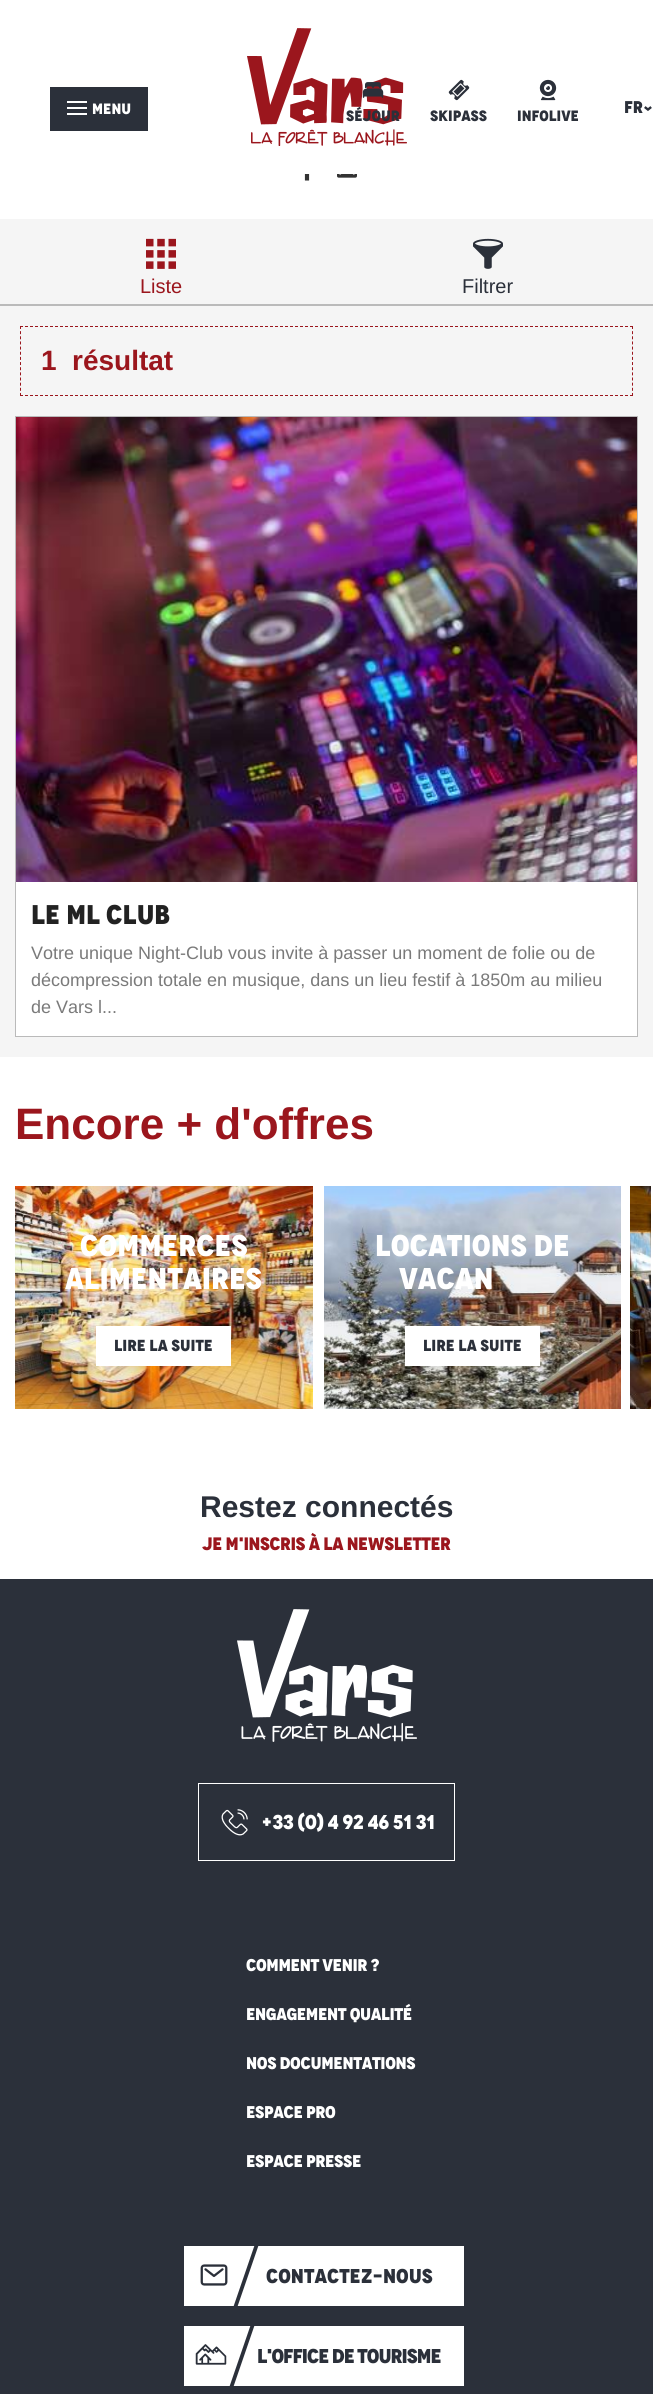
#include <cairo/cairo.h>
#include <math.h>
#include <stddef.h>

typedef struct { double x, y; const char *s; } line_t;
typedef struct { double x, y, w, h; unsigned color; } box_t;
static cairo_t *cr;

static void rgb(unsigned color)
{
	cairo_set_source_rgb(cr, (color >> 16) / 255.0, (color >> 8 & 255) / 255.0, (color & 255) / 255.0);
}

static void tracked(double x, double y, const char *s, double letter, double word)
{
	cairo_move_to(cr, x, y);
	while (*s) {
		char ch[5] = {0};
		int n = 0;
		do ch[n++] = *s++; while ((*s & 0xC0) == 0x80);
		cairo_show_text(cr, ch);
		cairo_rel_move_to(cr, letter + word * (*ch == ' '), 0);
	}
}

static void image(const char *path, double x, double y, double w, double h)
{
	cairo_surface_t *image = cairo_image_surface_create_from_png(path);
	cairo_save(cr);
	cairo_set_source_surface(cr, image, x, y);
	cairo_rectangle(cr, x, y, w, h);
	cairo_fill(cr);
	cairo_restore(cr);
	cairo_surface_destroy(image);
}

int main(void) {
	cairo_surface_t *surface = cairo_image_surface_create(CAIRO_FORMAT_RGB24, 653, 2394);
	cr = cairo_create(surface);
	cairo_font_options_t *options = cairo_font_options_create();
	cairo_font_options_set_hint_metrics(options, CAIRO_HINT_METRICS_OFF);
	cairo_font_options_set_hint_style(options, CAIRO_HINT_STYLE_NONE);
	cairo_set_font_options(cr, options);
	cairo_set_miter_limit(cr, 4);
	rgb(0xffffff);
	cairo_paint(cr);
	{
		static const box_t items[] = {
			{50, 87, 98, 44, 0x2b303a},
			{67, 101, 20, 2, 0xffffff},
			{67, 107, 20, 2, 0xffffff},
			{67, 113, 20, 2, 0xffffff},
		};
		for (size_t i = 0; i < sizeof items / sizeof *items; i++) {
			rgb(items[i].color);
			cairo_rectangle(cr, items[i].x, items[i].y, items[i].w, items[i].h);
			cairo_fill(cr);
		}
	}
	image("img/1.png", 247, 28, 160, 118);
	image("img/2.png", 362, 82, 22, 16);
	image("img/3.png", 448, 79, 22, 22);
	image("img/4.png", 539, 79, 18, 22);
	image("img/5.png", 304, 174, 6, 7);
	image("img/6.png", 337, 174, 20, 4);
	rgb(0xf5f5f5);
	cairo_rectangle(cr, 0, 219, 653, 85);
	cairo_fill(cr);
	rgb(0xbababa);
	cairo_rectangle(cr, 0, 304, 653, 2);
	cairo_fill(cr);
	image("img/7.png", 146, 238, 30, 31);
	image("img/8.png", 473, 238, 30, 31);
	rgb(0xf5f5f5);
	cairo_rectangle(cr, 0, 306, 653, 751);
	cairo_fill(cr);
	cairo_new_path(cr);
	cairo_move_to(cr, 20, 326.5);
	cairo_line_to(cr, 633, 326.5);
	rgb(0x9b161d);
	cairo_set_line_width(cr, 1);
	cairo_set_dash(cr, (double[]){3, 2}, 2, 0);
	cairo_stroke(cr);
	cairo_new_path(cr);
	cairo_move_to(cr, 632.5, 326);
	cairo_line_to(cr, 632.5, 396);
	cairo_set_dash(cr, (double[]){3, 2.15}, 2, 0);
	cairo_stroke(cr);
	cairo_new_path(cr);
	cairo_move_to(cr, 20, 395.5);
	cairo_line_to(cr, 633, 395.5);
	cairo_set_dash(cr, (double[]){3, 2}, 2, 0);
	cairo_stroke(cr);
	cairo_new_path(cr);
	cairo_move_to(cr, 20.5, 326);
	cairo_line_to(cr, 20.5, 396);
	cairo_set_dash(cr, (double[]){3, 2.15}, 2, 0);
	cairo_stroke(cr);
	{
		static const box_t items[] = {
			{15, 416, 623, 1, 0xbababa},
			{637, 416, 1, 621, 0xbababa},
			{15, 416, 1, 466, 0xbababa},
		};
		for (size_t i = 0; i < sizeof items / sizeof *items; i++) {
			rgb(items[i].color);
			cairo_rectangle(cr, items[i].x, items[i].y, items[i].w, items[i].h);
			cairo_fill(cr);
		}
	}
	image("img/9.png", 16, 417, 621, 465);
	{
		static const box_t items[] = {
			{16, 882, 621, 154, 0xffffff},
			{15, 1036, 623, 1, 0xbababa},
			{15, 882, 1, 155, 0xbababa},
		};
		for (size_t i = 0; i < sizeof items / sizeof *items; i++) {
			rgb(items[i].color);
			cairo_rectangle(cr, items[i].x, items[i].y, items[i].w, items[i].h);
			cairo_fill(cr);
		}
	}
	image("img/10.png", 15, 1186, 298, 223);
	rgb(0xffffff);
	cairo_rectangle(cr, 96, 1326, 135, 40);
	cairo_fill(cr);
	image("img/11.png", 324, 1186, 297, 223);
	cairo_rectangle(cr, 405, 1326, 135, 40);
	cairo_fill(cr);
	image("img/12.png", 630, 1186, 21, 223);
	rgb(0x2b303a);
	cairo_rectangle(cr, 0, 1579, 653, 815);
	cairo_fill(cr);
	image("img/13.png", 237, 1609, 180, 133);
	cairo_rectangle(cr, 198.5, 1783.5, 256, 77);
	rgb(0xffffff);
	cairo_set_dash(cr, NULL, 0, 0);
	cairo_stroke(cr);
	image("img/14.png", 221, 1809, 27, 27);
	cairo_rectangle(cr, 184, 2246, 280, 60);
	cairo_fill(cr);
	rgb(0x2b303a);
	cairo_new_path(cr);
	cairo_move_to(cr, 255, 2244);
	cairo_line_to(cr, 259, 2244);
	cairo_line_to(cr, 237, 2308);
	cairo_line_to(cr, 233, 2308);
	cairo_close_path(cr);
	cairo_fill(cr);
	image("img/15.png", 200, 2264, 28, 22);
	rgb(0xffffff);
	cairo_rectangle(cr, 184, 2326, 280, 60);
	cairo_fill(cr);
	rgb(0x2b303a);
	cairo_new_path(cr);
	cairo_move_to(cr, 251, 2324);
	cairo_line_to(cr, 255, 2324);
	cairo_line_to(cr, 233, 2388);
	cairo_line_to(cr, 229, 2388);
	cairo_close_path(cr);
	cairo_fill(cr);
	image("img/16.png", 195, 2344, 32, 21);
	cairo_select_font_face(cr, "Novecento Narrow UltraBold", CAIRO_FONT_SLANT_NORMAL, CAIRO_FONT_WEIGHT_BOLD);
	cairo_set_font_size(cr, 15);
	rgb(0xffffff);
	cairo_move_to(cr, 92, 114);
	cairo_show_text(cr, "MENU");
	rgb(0x2b303a);
	{
		static const line_t items[] = {
			{346, 121, "SÉJOUR"},
			{430, 121, "SKIPASS"},
			{517, 121, "INFOLIVE"},
		};
		for (size_t i = 0; i < sizeof items / sizeof *items; i++) {
			cairo_move_to(cr, items[i].x, items[i].y);
			cairo_show_text(cr, items[i].s);
		}
	}
	cairo_set_font_size(cr, 17);
	cairo_move_to(cr, 624, 113);
	cairo_show_text(cr, "FR");
	cairo_save(cr);
	cairo_translate(cr, 642, 105);
	cairo_rotate(cr, 90 * M_PI / 180);
	cairo_move_to(cr, 0, 0);
	cairo_show_text(cr, "›");
	cairo_restore(cr);
	cairo_select_font_face(cr, "Liberation Sans", CAIRO_FONT_SLANT_NORMAL, CAIRO_FONT_WEIGHT_NORMAL);
	cairo_set_font_size(cr, 20);
	rgb(0x9b161d);
	cairo_move_to(cr, 140, 293);
	cairo_show_text(cr, "Liste");
	rgb(0x2b303a);
	cairo_move_to(cr, 462, 293);
	cairo_show_text(cr, "Filtrer");
	cairo_select_font_face(cr, "Liberation Sans", CAIRO_FONT_SLANT_NORMAL, CAIRO_FONT_WEIGHT_BOLD);
	cairo_set_font_size(cr, 28);
	rgb(0x9b161d);
	cairo_move_to(cr, 41, 370);
	cairo_show_text(cr, "1");
	cairo_move_to(cr, 72, 370);
	cairo_show_text(cr, "résultat");
	cairo_select_font_face(cr, "Novecento Narrow UltraBold", CAIRO_FONT_SLANT_NORMAL, CAIRO_FONT_WEIGHT_BOLD);
	cairo_set_font_size(cr, 27);
	rgb(0x222222);
	cairo_move_to(cr, 31, 924);
	cairo_show_text(cr, "Le ML Club");
	cairo_select_font_face(cr, "Liberation Sans", CAIRO_FONT_SLANT_NORMAL, CAIRO_FONT_WEIGHT_NORMAL);
	cairo_set_font_size(cr, 18);
	rgb(0x7a7a7a);
	{
		static const line_t items[] = {
			{31, 959, "Votre unique Night-Club vous invite à passer un moment de folie ou de"},
			{31, 986, "décompression totale en musique, dans un lieu festif à 1850m au milieu"},
			{31, 1013, "de Vars l..."},
		};
		for (size_t i = 0; i < sizeof items / sizeof *items; i++) {
			cairo_move_to(cr, items[i].x, items[i].y);
			cairo_show_text(cr, items[i].s);
		}
	}
	cairo_select_font_face(cr, "Liberation Sans", CAIRO_FONT_SLANT_NORMAL, CAIRO_FONT_WEIGHT_BOLD);
	cairo_set_font_size(cr, 44);
	rgb(0x9b161d);
	cairo_move_to(cr, 15, 1139);
	cairo_show_text(cr, "Encore + d'offres");
	cairo_select_font_face(cr, "Novecento Narrow UltraBold", CAIRO_FONT_SLANT_NORMAL, CAIRO_FONT_WEIGHT_BOLD);
	cairo_set_font_size(cr, 30);
	rgb(0xffffff);
	cairo_move_to(cr, 80, 1256);
	cairo_show_text(cr, "Commerces");
	cairo_move_to(cr, 65, 1289);
	cairo_show_text(cr, "Alimentaires");
	cairo_set_font_size(cr, 16);
	rgb(0x2b303a);
	cairo_move_to(cr, 114, 1351);
	cairo_show_text(cr, "LIRE LA SUITE");
	cairo_set_font_size(cr, 30);
	rgb(0xffffff);
	cairo_move_to(cr, 375, 1256);
	cairo_show_text(cr, "Locations de");
	cairo_move_to(cr, 399, 1289);
	cairo_show_text(cr, "vacan");
	cairo_set_font_size(cr, 16);
	rgb(0x2b303a);
	cairo_move_to(cr, 423, 1351);
	cairo_show_text(cr, "LIRE LA SUITE");
	cairo_select_font_face(cr, "Liberation Sans", CAIRO_FONT_SLANT_NORMAL, CAIRO_FONT_WEIGHT_BOLD);
	cairo_set_font_size(cr, 30);
	cairo_move_to(cr, 200, 1517);
	cairo_show_text(cr, "Restez connectés");
	cairo_select_font_face(cr, "Novecento Narrow UltraBold", CAIRO_FONT_SLANT_NORMAL, CAIRO_FONT_WEIGHT_BOLD);
	cairo_set_font_size(cr, 18);
	rgb(0x9b161d);
	tracked(202, 1550, "JE M'INSCRIS À LA NEWSLETTER", -0.4, 0);
	cairo_set_font_size(cr, 20);
	rgb(0xffffff);
	tracked(261, 1829, "+33 (0) 4 92 46 51 31", -0.4, 0);
	cairo_set_font_size(cr, 17);
	{
		static const line_t items[] = {
			{246, 1971, "COMMENT VENIR ?"},
			{246, 2020, "ENGAGEMENT QUALITÉ"},
			{246, 2069, "NOS DOCUMENTATIONS"},
			{246, 2118, "ESPACE PRO"},
			{246, 2167, "ESPACE PRESSE"},
		};
		for (size_t i = 0; i < sizeof items / sizeof *items; i++) {
			tracked(items[i].x, items[i].y, items[i].s, -0.4, 0);
		}
	}
	cairo_set_font_size(cr, 20);
	rgb(0x2b303a);
	cairo_move_to(cr, 266, 2283);
	cairo_show_text(cr, "CONTACTEZ-NOUS");
	tracked(257, 2363, "L'OFFICE DE TOURISME", -1, 0);
	cairo_surface_write_to_png(surface, "page.png");
	cairo_font_options_destroy(options);
	cairo_destroy(cr);
	cairo_surface_destroy(surface);
	return 0;
}
